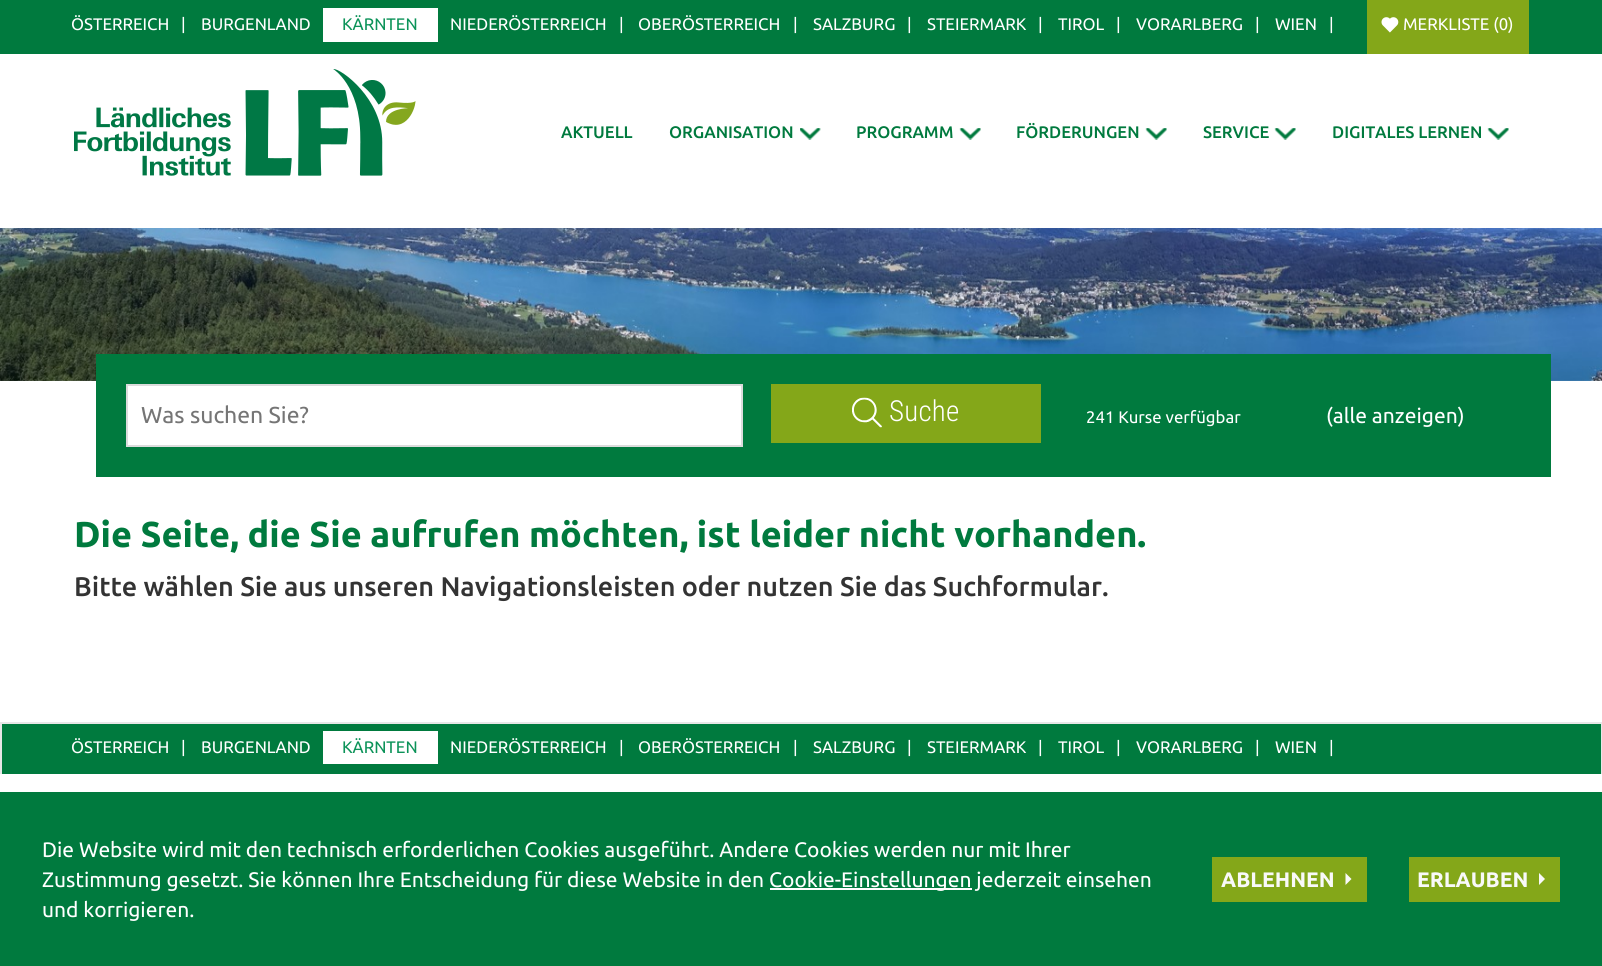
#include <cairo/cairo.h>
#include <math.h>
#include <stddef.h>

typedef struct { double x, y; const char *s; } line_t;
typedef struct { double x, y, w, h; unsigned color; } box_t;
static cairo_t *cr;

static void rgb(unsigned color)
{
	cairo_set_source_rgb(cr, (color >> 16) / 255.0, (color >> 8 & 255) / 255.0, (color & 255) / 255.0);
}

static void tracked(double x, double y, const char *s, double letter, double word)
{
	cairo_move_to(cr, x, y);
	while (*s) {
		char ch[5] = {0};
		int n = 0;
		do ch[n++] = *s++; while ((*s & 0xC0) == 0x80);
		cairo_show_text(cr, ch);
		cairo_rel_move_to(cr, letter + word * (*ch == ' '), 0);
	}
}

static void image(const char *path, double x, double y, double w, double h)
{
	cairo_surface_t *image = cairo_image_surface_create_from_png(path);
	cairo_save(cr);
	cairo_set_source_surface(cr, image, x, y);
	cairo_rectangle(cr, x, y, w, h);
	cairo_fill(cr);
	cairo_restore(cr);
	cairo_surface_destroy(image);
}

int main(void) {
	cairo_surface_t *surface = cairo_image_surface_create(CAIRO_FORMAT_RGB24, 1602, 966);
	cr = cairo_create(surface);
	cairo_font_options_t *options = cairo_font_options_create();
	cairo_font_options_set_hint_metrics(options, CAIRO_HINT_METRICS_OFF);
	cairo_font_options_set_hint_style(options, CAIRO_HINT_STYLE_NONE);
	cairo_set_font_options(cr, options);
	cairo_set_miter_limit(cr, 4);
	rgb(0xffffff);
	cairo_paint(cr);
	{
		static const box_t items[] = {
			{0, 0, 1602, 54, 0x007a3e},
			{323, 8, 115, 34, 0xffffff},
			{1367, 0, 162, 54, 0x84a719},
		};
		for (size_t i = 0; i < sizeof items / sizeof *items; i++) {
			rgb(items[i].color);
			cairo_rectangle(cr, items[i].x, items[i].y, items[i].w, items[i].h);
			cairo_fill(cr);
		}
	}
	image("img/1.png", 1381, 17, 18, 16);
	image("img/2.png", 74, 69, 342, 107);
	image("img/3.png", 800, 128, 21, 12);
	image("img/4.png", 959, 128, 22, 12);
	image("img/4.png", 1145, 128, 22, 12);
	image("img/4.png", 1274, 128, 22, 12);
	image("img/4.png", 1487, 128, 22, 12);
	image("img/5.png", 0, 228, 1602, 153);
	rgb(0x007a3e);
	cairo_rectangle(cr, 96, 354, 1455, 123);
	cairo_fill(cr);
	rgb(0xffffff);
	cairo_rectangle(cr, 127, 385, 615, 61);
	cairo_fill_preserve(cr);
	rgb(0xdcdcdc);
	cairo_stroke(cr);
	rgb(0x84a719);
	cairo_rectangle(cr, 771, 384, 270, 59);
	cairo_fill(cr);
	image("img/6.png", 852, 397, 30, 31);
	{
		static const box_t items[] = {
			{2, 724, 1599, 50, 0x007a3e},
			{0, 722, 1602, 2, 0xe7e7e7},
			{1601, 722, 1, 52, 0xe7e7e7},
			{0, 722, 2, 52, 0xe7e7e7},
			{323, 731, 115, 33, 0xffffff},
			{0, 792, 1602, 174, 0x007a3e},
			{770, 888, 202, 2, 0xffffff},
			{1212, 857, 155, 45, 0x84a719},
		};
		for (size_t i = 0; i < sizeof items / sizeof *items; i++) {
			rgb(items[i].color);
			cairo_rectangle(cr, items[i].x, items[i].y, items[i].w, items[i].h);
			cairo_fill(cr);
		}
	}
	rgb(0xf9f9f9);
	cairo_new_path(cr);
	cairo_move_to(cr, 1345.5, 885);
	cairo_line_to(cr, 1345.5, 873);
	cairo_line_to(cr, 1351.5, 879);
	cairo_close_path(cr);
	cairo_fill(cr);
	rgb(0x84a719);
	cairo_rectangle(cr, 1409, 857, 151, 45);
	cairo_fill(cr);
	rgb(0xf9f9f9);
	cairo_new_path(cr);
	cairo_move_to(cr, 1539, 885);
	cairo_line_to(cr, 1539, 873);
	cairo_line_to(cr, 1545, 879);
	cairo_close_path(cr);
	cairo_fill(cr);
	cairo_select_font_face(cr, "Ubuntu", CAIRO_FONT_SLANT_NORMAL, CAIRO_FONT_WEIGHT_NORMAL);
	cairo_set_font_size(cr, 16.75);
	rgb(0xffffff);
	{
		static const line_t items[] = {
			{71, 30, "ÖSTERREICH"},
			{181, 30, "|"},
			{201, 30, "BURGENLAND"},
		};
		for (size_t i = 0; i < sizeof items / sizeof *items; i++) {
			cairo_move_to(cr, items[i].x, items[i].y);
			cairo_show_text(cr, items[i].s);
		}
	}
	rgb(0x0c9359);
	cairo_move_to(cr, 342, 30);
	cairo_show_text(cr, "KÄRNTEN");
	rgb(0xffffff);
	{
		static const line_t items[] = {
			{450, 30, "NIEDERÖSTERREICH"},
			{619, 30, "|"},
			{638, 30, "OBERÖSTERREICH"},
			{793, 30, "|"},
			{813, 30, "SALZBURG"},
			{907, 30, "|"},
			{927, 30, "STEIERMARK"},
			{1038, 30, "|"},
			{1058, 30, "TIROL"},
			{1116, 30, "|"},
			{1136, 30, "VORARLBERG"},
			{1255, 30, "|"},
			{1275, 30, "WIEN"},
			{1329, 30, "|"},
			{1403, 30, "MERKLISTE (0)"},
		};
		for (size_t i = 0; i < sizeof items / sizeof *items; i++) {
			cairo_move_to(cr, items[i].x, items[i].y);
			cairo_show_text(cr, items[i].s);
		}
	}
	cairo_select_font_face(cr, "Ubuntu Medium", CAIRO_FONT_SLANT_NORMAL, CAIRO_FONT_WEIGHT_NORMAL);
	rgb(0x007a3e);
	{
		static const line_t items[] = {
			{561, 138, "AKTUELL"},
			{669, 138, "ORGANISATION"},
			{856, 138, "PROGRAMM"},
			{1016, 138, "FÖRDERUNGEN"},
			{1203, 138, "SERVICE"},
			{1332, 138, "DIGITALES LERNEN"},
		};
		for (size_t i = 0; i < sizeof items / sizeof *items; i++) {
			cairo_move_to(cr, items[i].x, items[i].y);
			cairo_show_text(cr, items[i].s);
		}
	}
	cairo_select_font_face(cr, "Ubuntu", CAIRO_FONT_SLANT_NORMAL, CAIRO_FONT_WEIGHT_NORMAL);
	cairo_set_font_size(cr, 23);
	rgb(0x757575);
	cairo_move_to(cr, 141, 423);
	cairo_show_text(cr, "Was suchen Sie?");
	cairo_select_font_face(cr, "Roboto Condensed Light", CAIRO_FONT_SLANT_NORMAL, CAIRO_FONT_WEIGHT_NORMAL);
	cairo_set_font_size(cr, 29);
	rgb(0xffffff);
	tracked(889, 421, "Suche", 0.25, 0);
	cairo_select_font_face(cr, "Ubuntu", CAIRO_FONT_SLANT_NORMAL, CAIRO_FONT_WEIGHT_NORMAL);
	cairo_set_font_size(cr, 16.75);
	cairo_move_to(cr, 1086, 423);
	cairo_show_text(cr, "241 Kurse verfügbar");
	cairo_set_font_size(cr, 21);
	cairo_move_to(cr, 1326, 423);
	cairo_show_text(cr, "(alle anzeigen)");
	cairo_select_font_face(cr, "Ubuntu", CAIRO_FONT_SLANT_NORMAL, CAIRO_FONT_WEIGHT_BOLD);
	cairo_set_font_size(cr, 36);
	rgb(0x007a3e);
	cairo_move_to(cr, 74, 547);
	cairo_show_text(cr, "Die Seite, die Sie aufrufen möchten, ist leider nicht vorhanden.");
	cairo_select_font_face(cr, "Ubuntu Medium", CAIRO_FONT_SLANT_NORMAL, CAIRO_FONT_WEIGHT_NORMAL);
	cairo_set_font_size(cr, 27);
	rgb(0x333333);
	cairo_move_to(cr, 74, 596);
	cairo_show_text(cr, "Bitte wählen Sie aus unseren Navigationsleisten oder nutzen Sie das Suchformular.");
	cairo_select_font_face(cr, "Ubuntu", CAIRO_FONT_SLANT_NORMAL, CAIRO_FONT_WEIGHT_NORMAL);
	cairo_set_font_size(cr, 16.75);
	rgb(0xffffff);
	{
		static const line_t items[] = {
			{71, 753, "ÖSTERREICH"},
			{181, 753, "|"},
			{201, 753, "BURGENLAND"},
		};
		for (size_t i = 0; i < sizeof items / sizeof *items; i++) {
			cairo_move_to(cr, items[i].x, items[i].y);
			cairo_show_text(cr, items[i].s);
		}
	}
	rgb(0x0c9359);
	cairo_move_to(cr, 342, 753);
	cairo_show_text(cr, "KÄRNTEN");
	rgb(0xffffff);
	{
		static const line_t items[] = {
			{450, 753, "NIEDERÖSTERREICH"},
			{619, 753, "|"},
			{638, 753, "OBERÖSTERREICH"},
			{793, 753, "|"},
			{813, 753, "SALZBURG"},
			{907, 753, "|"},
			{927, 753, "STEIERMARK"},
			{1038, 753, "|"},
			{1058, 753, "TIROL"},
			{1116, 753, "|"},
			{1136, 753, "VORARLBERG"},
			{1255, 753, "|"},
			{1275, 753, "WIEN"},
			{1329, 753, "|"},
		};
		for (size_t i = 0; i < sizeof items / sizeof *items; i++) {
			cairo_move_to(cr, items[i].x, items[i].y);
			cairo_show_text(cr, items[i].s);
		}
	}
	cairo_set_font_size(cr, 21);
	{
		static const line_t items[] = {
			{42, 857, "Die Website wird mit den technisch erforderlichen Cookies ausgeführt. Andere Cookies werden nur mit Ihrer"},
			{42, 887, "Zustimmung gesetzt. Sie können Ihre Entscheidung für diese Website in den"},
			{769, 887, "Cookie-Einstellungen jederzeit einsehen"},
			{42, 917, "und korrigieren."},
		};
		for (size_t i = 0; i < sizeof items / sizeof *items; i++) {
			cairo_move_to(cr, items[i].x, items[i].y);
			cairo_show_text(cr, items[i].s);
		}
	}
	cairo_select_font_face(cr, "Ubuntu", CAIRO_FONT_SLANT_NORMAL, CAIRO_FONT_WEIGHT_BOLD);
	rgb(0xf9f9f9);
	cairo_move_to(cr, 1221, 887);
	cairo_show_text(cr, "ABLEHNEN");
	cairo_move_to(cr, 1417, 887);
	cairo_show_text(cr, "ERLAUBEN");
	cairo_surface_write_to_png(surface, "page.png");
	cairo_font_options_destroy(options);
	cairo_destroy(cr);
	cairo_surface_destroy(surface);
	return 0;
}
